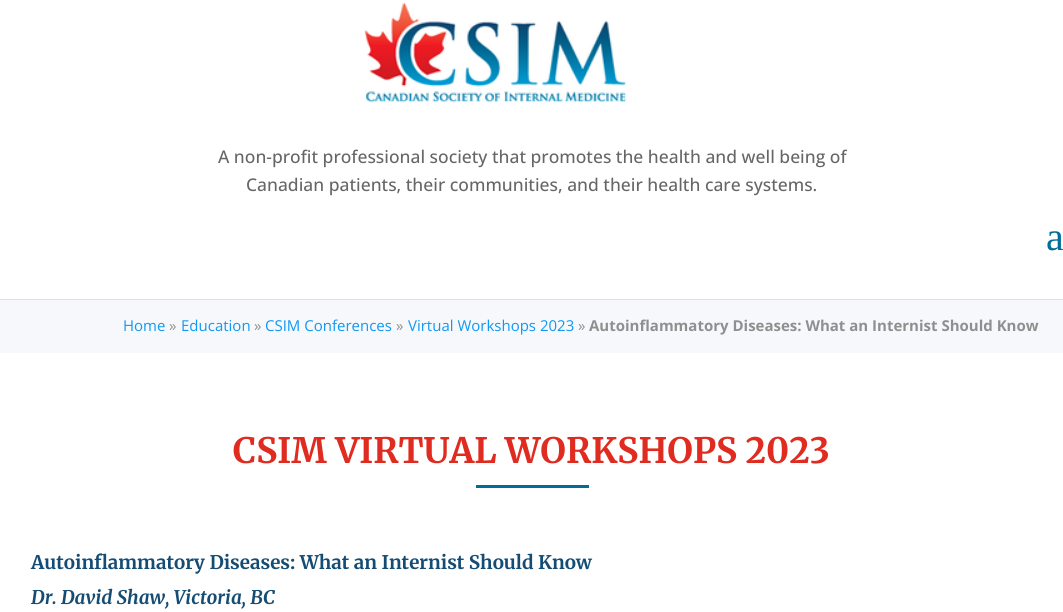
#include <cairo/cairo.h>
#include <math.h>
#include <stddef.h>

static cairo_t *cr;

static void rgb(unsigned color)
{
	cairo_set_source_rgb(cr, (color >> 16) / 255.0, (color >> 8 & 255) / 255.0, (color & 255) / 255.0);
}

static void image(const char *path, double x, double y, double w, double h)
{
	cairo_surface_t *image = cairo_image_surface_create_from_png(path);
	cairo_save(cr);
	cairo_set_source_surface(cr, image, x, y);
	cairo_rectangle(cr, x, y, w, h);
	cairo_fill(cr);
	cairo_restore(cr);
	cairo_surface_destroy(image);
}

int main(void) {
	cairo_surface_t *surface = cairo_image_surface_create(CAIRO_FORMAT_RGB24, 1063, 612);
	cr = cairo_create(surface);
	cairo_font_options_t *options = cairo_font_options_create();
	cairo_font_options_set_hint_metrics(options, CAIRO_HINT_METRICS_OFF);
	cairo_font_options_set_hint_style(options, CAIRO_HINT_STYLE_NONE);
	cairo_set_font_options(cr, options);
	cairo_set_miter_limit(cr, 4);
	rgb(0xffffff);
	cairo_paint(cr);
	rgb(0xdddfe2);
	cairo_new_path(cr);
	cairo_move_to(cr, 0, 299);
	cairo_line_to(cr, 0, 300);
	cairo_line_to(cr, 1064, 300);
	cairo_line_to(cr, 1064, 1);
	cairo_line_to(cr, 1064, 299);
	cairo_close_path(cr);
	cairo_fill(cr);
	image("img/1.png", 364, 2, 263, 101);
	rgb(0xf6f8fb);
	cairo_rectangle(cr, 0, 300, 1063, 53);
	cairo_fill(cr);
	rgb(0x006c97);
	cairo_rectangle(cr, 476, 485, 113, 3);
	cairo_fill(cr);
	cairo_select_font_face(cr, "Open Sans Medium", CAIRO_FONT_SLANT_NORMAL, CAIRO_FONT_WEIGHT_NORMAL);
	cairo_set_font_size(cr, 17.5);
	rgb(0x666666);
	cairo_move_to(cr, 218, 163);
	cairo_show_text(cr, "A non-profit professional society that promotes the health and well being of");
	cairo_move_to(cr, 246, 191);
	cairo_show_text(cr, "Canadian patients, their communities, and their health care systems.");
	cairo_select_font_face(cr, "Liberation Serif", CAIRO_FONT_SLANT_NORMAL, CAIRO_FONT_WEIGHT_NORMAL);
	cairo_set_font_size(cr, 40);
	rgb(0x006c97);
	cairo_move_to(cr, 1046, 250);
	cairo_show_text(cr, "a");
	cairo_select_font_face(cr, "Open Sans", CAIRO_FONT_SLANT_NORMAL, CAIRO_FONT_WEIGHT_NORMAL);
	cairo_set_font_size(cr, 15);
	rgb(0x1098f2);
	cairo_move_to(cr, 123, 331);
	cairo_show_text(cr, "Home");
	rgb(0x8e908f);
	cairo_move_to(cr, 169, 331);
	cairo_show_text(cr, "»");
	rgb(0x1098f2);
	cairo_move_to(cr, 181, 331);
	cairo_show_text(cr, "Education");
	rgb(0x8e908f);
	cairo_move_to(cr, 254, 331);
	cairo_show_text(cr, "»");
	rgb(0x1098f2);
	cairo_move_to(cr, 265, 331);
	cairo_show_text(cr, "CSIM Conferences");
	rgb(0x8e908f);
	cairo_move_to(cr, 396, 331);
	cairo_show_text(cr, "»");
	rgb(0x1098f2);
	cairo_move_to(cr, 408, 331);
	cairo_show_text(cr, "Virtual Workshops 2023");
	rgb(0x8e908f);
	cairo_move_to(cr, 578, 331);
	cairo_show_text(cr, "»");
	cairo_select_font_face(cr, "Open Sans", CAIRO_FONT_SLANT_NORMAL, CAIRO_FONT_WEIGHT_BOLD);
	cairo_move_to(cr, 589, 331);
	cairo_show_text(cr, "Autoinflammatory Diseases: What an Internist Should Know");
	cairo_select_font_face(cr, "Merriweather", CAIRO_FONT_SLANT_NORMAL, CAIRO_FONT_WEIGHT_BOLD);
	cairo_set_font_size(cr, 35);
	rgb(0xe02b20);
	cairo_move_to(cr, 233, 463);
	cairo_show_text(cr, "CSIM VIRTUAL WORKSHOPS 2023");
	cairo_set_font_size(cr, 18.75);
	rgb(0x154c74);
	cairo_move_to(cr, 31, 569);
	cairo_show_text(cr, "Autoinflammatory Diseases: What an Internist Should Know");
	cairo_select_font_face(cr, "Merriweather", CAIRO_FONT_SLANT_ITALIC, CAIRO_FONT_WEIGHT_BOLD);
	cairo_move_to(cr, 31, 604);
	cairo_show_text(cr, "Dr. David Shaw, Victoria, BC");
	cairo_surface_write_to_png(surface, "page.png");
	cairo_font_options_destroy(options);
	cairo_destroy(cr);
	cairo_surface_destroy(surface);
	return 0;
}
